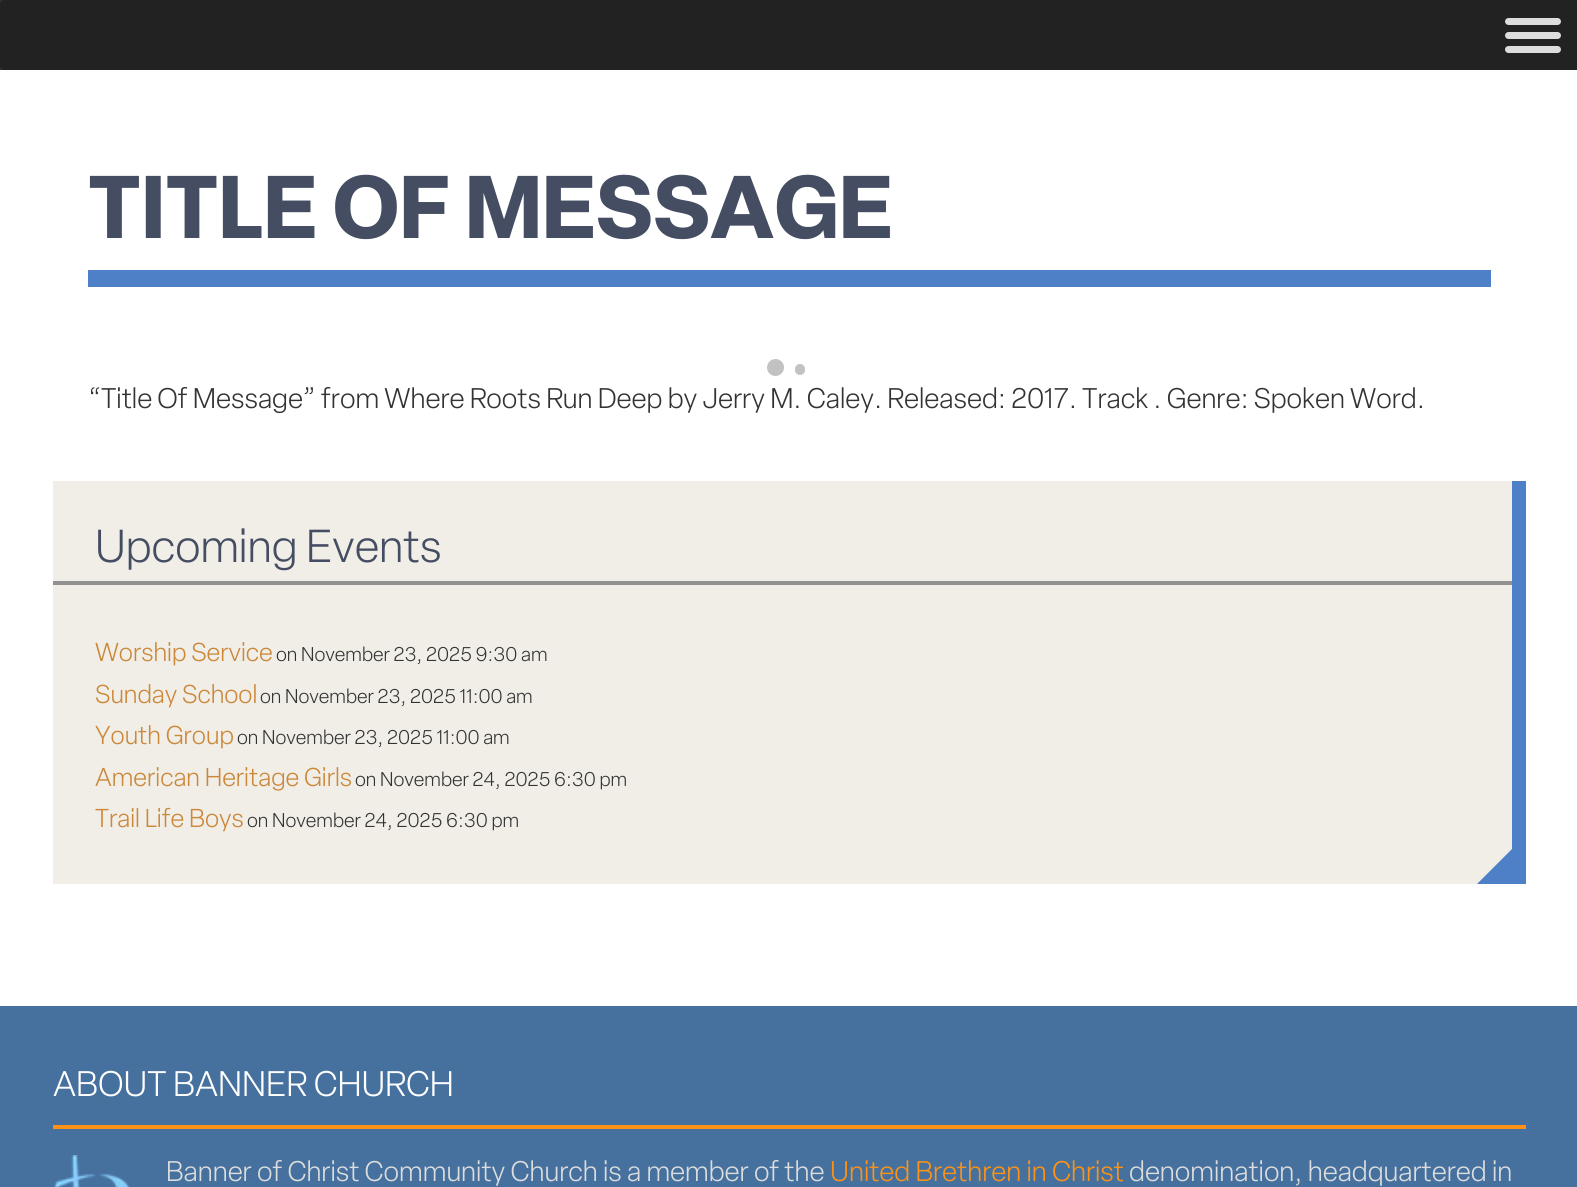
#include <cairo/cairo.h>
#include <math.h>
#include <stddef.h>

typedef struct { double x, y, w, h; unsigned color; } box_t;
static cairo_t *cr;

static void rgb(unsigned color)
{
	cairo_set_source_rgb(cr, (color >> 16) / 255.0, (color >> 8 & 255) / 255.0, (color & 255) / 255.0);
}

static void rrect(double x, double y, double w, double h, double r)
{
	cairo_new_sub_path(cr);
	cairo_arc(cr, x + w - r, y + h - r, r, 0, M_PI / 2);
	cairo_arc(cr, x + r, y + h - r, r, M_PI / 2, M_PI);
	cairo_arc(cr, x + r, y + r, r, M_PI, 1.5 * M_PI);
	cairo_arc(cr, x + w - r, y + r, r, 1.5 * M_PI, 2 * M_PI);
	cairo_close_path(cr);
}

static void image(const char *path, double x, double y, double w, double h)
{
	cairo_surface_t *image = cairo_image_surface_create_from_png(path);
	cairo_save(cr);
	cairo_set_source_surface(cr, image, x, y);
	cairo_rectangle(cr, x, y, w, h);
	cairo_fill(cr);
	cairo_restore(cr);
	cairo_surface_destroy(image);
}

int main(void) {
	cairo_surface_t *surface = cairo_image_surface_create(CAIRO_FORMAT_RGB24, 1577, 1187);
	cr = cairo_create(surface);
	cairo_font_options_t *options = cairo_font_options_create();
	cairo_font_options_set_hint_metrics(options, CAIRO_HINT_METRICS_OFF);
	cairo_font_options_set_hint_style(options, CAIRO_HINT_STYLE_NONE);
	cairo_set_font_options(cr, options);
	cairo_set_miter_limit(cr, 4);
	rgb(0xffffff);
	cairo_paint(cr);
	rgb(0x333333);
	cairo_rectangle(cr, 0, 0, 1577, 70);
	cairo_fill(cr);
	rgb(0x222222);
	rrect(0, 0, 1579, 70, 4);
	cairo_fill(cr);
	rgb(0xdddddd);
	rrect(1505, 18, 56, 7, 3.5);
	cairo_fill(cr);
	rrect(1505, 32, 56, 7, 3.5);
	cairo_fill(cr);
	rrect(1505, 46, 56, 7, 3.5);
	cairo_fill(cr);
	rgb(0x4e80c7);
	cairo_rectangle(cr, 88, 270, 1403, 17);
	cairo_fill(cr);
	rgb(0xc2c2c2);
	cairo_arc(cr, 775.5, 367.5, 8.5, 0, 2 * M_PI);
	cairo_fill(cr);
	rrect(795, 364, 10, 11, 5);
	cairo_fill(cr);
	{
		static const box_t items[] = {
			{53, 481, 1459, 403, 0xf0eee7},
			{1512, 481, 14, 403, 0x4e80c7},
			{53, 581, 1459, 4, 0x919191},
		};
		for (size_t i = 0; i < sizeof items / sizeof *items; i++) {
			rgb(items[i].color);
			cairo_rectangle(cr, items[i].x, items[i].y, items[i].w, items[i].h);
			cairo_fill(cr);
		}
	}
	rgb(0x4e80c7);
	cairo_new_path(cr);
	cairo_move_to(cr, 1512, 884);
	cairo_line_to(cr, 1477, 884);
	cairo_line_to(cr, 1512, 849);
	cairo_close_path(cr);
	cairo_fill(cr);
	rgb(0x46719e);
	cairo_rectangle(cr, 0, 1006, 1577, 181);
	cairo_fill(cr);
	rgb(0xff9214);
	cairo_rectangle(cr, 53, 1125, 1473, 4);
	cairo_fill(cr);
	image("img/1.png", 54, 1155, 76, 32);
	cairo_select_font_face(cr, "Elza", CAIRO_FONT_SLANT_NORMAL, CAIRO_FONT_WEIGHT_BOLD);
	cairo_set_font_size(cr, 87.5);
	rgb(0x454d62);
	cairo_move_to(cr, 88, 238);
	cairo_show_text(cr, "TITLE OF MESSAGE");
	cairo_select_font_face(cr, "Elza Light", CAIRO_FONT_SLANT_NORMAL, CAIRO_FONT_WEIGHT_NORMAL);
	cairo_set_font_size(cr, 28);
	rgb(0x333333);
	cairo_move_to(cr, 88, 408);
	cairo_show_text(cr, "“Title Of Message” from Where Roots Run Deep by Jerry M. Caley. Released: 2017. Track . Genre: Spoken Word.");
	cairo_set_font_size(cr, 45.5);
	rgb(0x454d62);
	cairo_move_to(cr, 95, 562);
	cairo_show_text(cr, "Upcoming Events");
	cairo_set_font_size(cr, 25.5);
	rgb(0xcc8739);
	cairo_move_to(cr, 95, 661);
	cairo_show_text(cr, "Worship Service");
	cairo_set_font_size(cr, 19.6);
	rgb(0x333333);
	cairo_move_to(cr, 276, 661);
	cairo_show_text(cr, "on November 23, 2025 9:30 am");
	cairo_set_font_size(cr, 25.5);
	rgb(0xcc8739);
	cairo_move_to(cr, 95, 703);
	cairo_show_text(cr, "Sunday School");
	cairo_set_font_size(cr, 19.6);
	rgb(0x333333);
	cairo_move_to(cr, 260, 703);
	cairo_show_text(cr, "on November 23, 2025 11:00 am");
	cairo_set_font_size(cr, 25.5);
	rgb(0xcc8739);
	cairo_move_to(cr, 95, 744);
	cairo_show_text(cr, "Youth Group");
	cairo_set_font_size(cr, 19.6);
	rgb(0x333333);
	cairo_move_to(cr, 237, 744);
	cairo_show_text(cr, "on November 23, 2025 11:00 am");
	cairo_set_font_size(cr, 25.5);
	rgb(0xcc8739);
	cairo_move_to(cr, 95, 786);
	cairo_show_text(cr, "American Heritage Girls");
	cairo_set_font_size(cr, 19.6);
	rgb(0x333333);
	cairo_move_to(cr, 355, 786);
	cairo_show_text(cr, "on November 24, 2025 6:30 pm");
	cairo_set_font_size(cr, 25.5);
	rgb(0xcc8739);
	cairo_move_to(cr, 95, 827);
	cairo_show_text(cr, "Trail Life Boys");
	cairo_set_font_size(cr, 19.6);
	rgb(0x333333);
	cairo_move_to(cr, 247, 827);
	cairo_show_text(cr, "on November 24, 2025 6:30 pm");
	cairo_set_font_size(cr, 35);
	rgb(0xffffff);
	cairo_move_to(cr, 53, 1096);
	cairo_show_text(cr, "ABOUT BANNER CHURCH");
	cairo_set_font_size(cr, 28);
	rgb(0xdddddd);
	cairo_move_to(cr, 166, 1181);
	cairo_show_text(cr, "Banner of Christ Community Church is a member of the");
	rgb(0xff9214);
	cairo_move_to(cr, 830, 1181);
	cairo_show_text(cr, "United Brethren in Christ");
	rgb(0xdddddd);
	cairo_move_to(cr, 1129, 1181);
	cairo_show_text(cr, "denomination, headquartered in");
	cairo_surface_write_to_png(surface, "page.png");
	cairo_font_options_destroy(options);
	cairo_destroy(cr);
	cairo_surface_destroy(surface);
	return 0;
}
